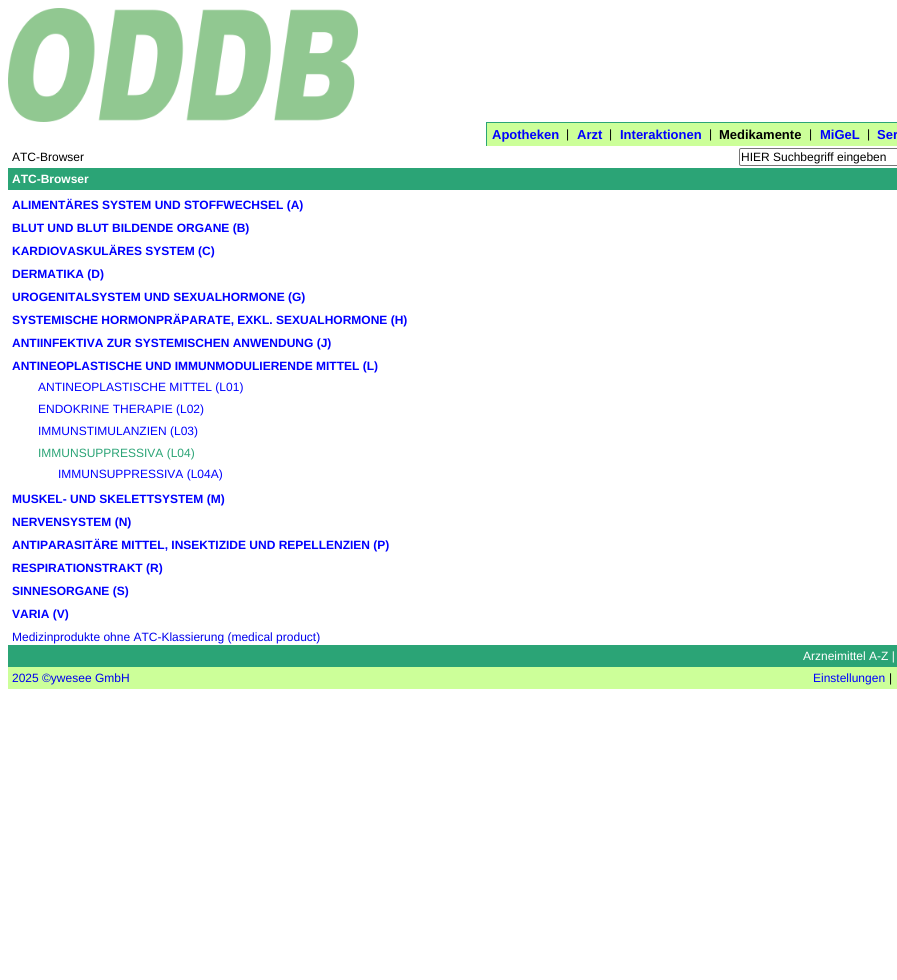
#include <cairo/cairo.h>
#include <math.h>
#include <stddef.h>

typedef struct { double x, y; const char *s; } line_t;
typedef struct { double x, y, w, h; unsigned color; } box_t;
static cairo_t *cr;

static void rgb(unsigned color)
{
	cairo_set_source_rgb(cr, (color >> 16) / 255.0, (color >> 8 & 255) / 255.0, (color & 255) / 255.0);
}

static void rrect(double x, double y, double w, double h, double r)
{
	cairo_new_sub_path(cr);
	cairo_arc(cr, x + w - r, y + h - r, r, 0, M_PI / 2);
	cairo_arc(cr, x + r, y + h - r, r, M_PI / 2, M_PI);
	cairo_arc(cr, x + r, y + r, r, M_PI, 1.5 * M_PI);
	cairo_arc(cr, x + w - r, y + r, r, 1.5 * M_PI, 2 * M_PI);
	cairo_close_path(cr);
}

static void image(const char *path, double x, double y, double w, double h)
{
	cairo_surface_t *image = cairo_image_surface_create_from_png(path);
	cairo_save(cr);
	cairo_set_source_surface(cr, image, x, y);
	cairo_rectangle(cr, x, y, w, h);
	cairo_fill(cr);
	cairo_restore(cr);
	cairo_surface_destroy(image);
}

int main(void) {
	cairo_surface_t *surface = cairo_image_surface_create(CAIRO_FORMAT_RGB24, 897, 980);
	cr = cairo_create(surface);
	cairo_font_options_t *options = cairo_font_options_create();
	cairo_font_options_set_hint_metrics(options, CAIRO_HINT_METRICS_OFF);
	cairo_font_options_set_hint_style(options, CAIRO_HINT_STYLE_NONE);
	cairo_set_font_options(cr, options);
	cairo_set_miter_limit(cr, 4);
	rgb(0xffffff);
	cairo_paint(cr);
	image("img/1.png", 8, 8, 350, 114);
	{
		static const box_t items[] = {
			{487, 123, 410, 23, 0xccff99},
			{486, 122, 411, 1, 0x2ba476},
			{486, 122, 1, 24, 0x2ba476},
		};
		for (size_t i = 0; i < sizeof items / sizeof *items; i++) {
			rgb(items[i].color);
			cairo_rectangle(cr, items[i].x, items[i].y, items[i].w, items[i].h);
			cairo_fill(cr);
		}
	}
	rrect(739.5, 148.5, 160, 17, 1.5);
	rgb(0x767676);
	cairo_set_line_width(cr, 1);
	cairo_stroke(cr);
	{
		static const box_t items[] = {
			{8, 168, 889, 22, 0x2ba476},
			{8, 645, 889, 22, 0x2ba476},
			{8, 667, 889, 22, 0xccff99},
		};
		for (size_t i = 0; i < sizeof items / sizeof *items; i++) {
			rgb(items[i].color);
			cairo_rectangle(cr, items[i].x, items[i].y, items[i].w, items[i].h);
			cairo_fill(cr);
		}
	}
	cairo_select_font_face(cr, "Liberation Sans", CAIRO_FONT_SLANT_NORMAL, CAIRO_FONT_WEIGHT_BOLD);
	cairo_set_font_size(cr, 13);
	rgb(0x0000ff);
	cairo_move_to(cr, 492, 139);
	cairo_show_text(cr, "Apotheken");
	cairo_select_font_face(cr, "Liberation Sans", CAIRO_FONT_SLANT_NORMAL, CAIRO_FONT_WEIGHT_NORMAL);
	cairo_set_font_size(cr, 12);
	rgb(0x000000);
	cairo_move_to(cr, 566, 138);
	cairo_show_text(cr, "|");
	cairo_select_font_face(cr, "Liberation Sans", CAIRO_FONT_SLANT_NORMAL, CAIRO_FONT_WEIGHT_BOLD);
	cairo_set_font_size(cr, 13);
	rgb(0x0000ff);
	cairo_move_to(cr, 577, 139);
	cairo_show_text(cr, "Arzt");
	cairo_select_font_face(cr, "Liberation Sans", CAIRO_FONT_SLANT_NORMAL, CAIRO_FONT_WEIGHT_NORMAL);
	cairo_set_font_size(cr, 12);
	rgb(0x000000);
	cairo_move_to(cr, 609, 138);
	cairo_show_text(cr, "|");
	cairo_select_font_face(cr, "Liberation Sans", CAIRO_FONT_SLANT_NORMAL, CAIRO_FONT_WEIGHT_BOLD);
	cairo_set_font_size(cr, 13);
	rgb(0x0000ff);
	cairo_move_to(cr, 620, 139);
	cairo_show_text(cr, "Interaktionen");
	cairo_select_font_face(cr, "Liberation Sans", CAIRO_FONT_SLANT_NORMAL, CAIRO_FONT_WEIGHT_NORMAL);
	cairo_set_font_size(cr, 12);
	rgb(0x000000);
	cairo_move_to(cr, 709, 138);
	cairo_show_text(cr, "|");
	cairo_select_font_face(cr, "Liberation Sans", CAIRO_FONT_SLANT_NORMAL, CAIRO_FONT_WEIGHT_BOLD);
	cairo_set_font_size(cr, 13);
	cairo_move_to(cr, 719, 139);
	cairo_show_text(cr, "Medikamente");
	cairo_select_font_face(cr, "Liberation Sans", CAIRO_FONT_SLANT_NORMAL, CAIRO_FONT_WEIGHT_NORMAL);
	cairo_set_font_size(cr, 12);
	cairo_move_to(cr, 809, 138);
	cairo_show_text(cr, "|");
	cairo_select_font_face(cr, "Liberation Sans", CAIRO_FONT_SLANT_NORMAL, CAIRO_FONT_WEIGHT_BOLD);
	cairo_set_font_size(cr, 13);
	rgb(0x0000ff);
	cairo_move_to(cr, 820, 139);
	cairo_show_text(cr, "MiGeL");
	cairo_select_font_face(cr, "Liberation Sans", CAIRO_FONT_SLANT_NORMAL, CAIRO_FONT_WEIGHT_NORMAL);
	cairo_set_font_size(cr, 12);
	rgb(0x000000);
	cairo_move_to(cr, 867, 138);
	cairo_show_text(cr, "|");
	cairo_select_font_face(cr, "Liberation Sans", CAIRO_FONT_SLANT_NORMAL, CAIRO_FONT_WEIGHT_BOLD);
	cairo_set_font_size(cr, 13);
	rgb(0x0000ff);
	cairo_move_to(cr, 877, 139);
	cairo_show_text(cr, "Ser");
	cairo_select_font_face(cr, "Liberation Sans", CAIRO_FONT_SLANT_NORMAL, CAIRO_FONT_WEIGHT_NORMAL);
	cairo_set_font_size(cr, 12);
	rgb(0x000000);
	cairo_move_to(cr, 12, 161);
	cairo_show_text(cr, "ATC-Browser");
	cairo_move_to(cr, 741, 161);
	cairo_show_text(cr, "HIER Suchbegriff eingeben");
	cairo_select_font_face(cr, "Liberation Sans", CAIRO_FONT_SLANT_NORMAL, CAIRO_FONT_WEIGHT_BOLD);
	rgb(0xffffff);
	cairo_move_to(cr, 12, 183);
	cairo_show_text(cr, "ATC-Browser");
	rgb(0x0000ff);
	{
		static const line_t items[] = {
			{12, 209, "ALIMENTÄRES SYSTEM UND STOFFWECHSEL (A)"},
			{12, 232, "BLUT UND BLUT BILDENDE ORGANE (B)"},
			{12, 255, "KARDIOVASKULÄRES SYSTEM (C)"},
			{12, 278, "DERMATIKA (D)"},
			{12, 301, "UROGENITALSYSTEM UND SEXUALHORMONE (G)"},
			{12, 324, "SYSTEMISCHE HORMONPRÄPARATE, EXKL. SEXUALHORMONE (H)"},
			{12, 347, "ANTIINFEKTIVA ZUR SYSTEMISCHEN ANWENDUNG (J)"},
			{12, 370, "ANTINEOPLASTISCHE UND IMMUNMODULIERENDE MITTEL (L)"},
		};
		for (size_t i = 0; i < sizeof items / sizeof *items; i++) {
			cairo_move_to(cr, items[i].x, items[i].y);
			cairo_show_text(cr, items[i].s);
		}
	}
	cairo_select_font_face(cr, "Liberation Sans", CAIRO_FONT_SLANT_NORMAL, CAIRO_FONT_WEIGHT_NORMAL);
	{
		static const line_t items[] = {
			{38, 391, "ANTINEOPLASTISCHE MITTEL (L01)"},
			{38, 413, "ENDOKRINE THERAPIE (L02)"},
			{38, 435, "IMMUNSTIMULANZIEN (L03)"},
		};
		for (size_t i = 0; i < sizeof items / sizeof *items; i++) {
			cairo_move_to(cr, items[i].x, items[i].y);
			cairo_show_text(cr, items[i].s);
		}
	}
	rgb(0x2ba476);
	cairo_move_to(cr, 38, 457);
	cairo_show_text(cr, "IMMUNSUPPRESSIVA (L04)");
	rgb(0x0000ff);
	cairo_move_to(cr, 58, 478);
	cairo_show_text(cr, "IMMUNSUPPRESSIVA (L04A)");
	cairo_select_font_face(cr, "Liberation Sans", CAIRO_FONT_SLANT_NORMAL, CAIRO_FONT_WEIGHT_BOLD);
	{
		static const line_t items[] = {
			{12, 503, "MUSKEL- UND SKELETTSYSTEM (M)"},
			{12, 526, "NERVENSYSTEM (N)"},
			{12, 549, "ANTIPARASITÄRE MITTEL, INSEKTIZIDE UND REPELLENZIEN (P)"},
			{12, 572, "RESPIRATIONSTRAKT (R)"},
			{12, 595, "SINNESORGANE (S)"},
			{12, 618, "VARIA (V)"},
		};
		for (size_t i = 0; i < sizeof items / sizeof *items; i++) {
			cairo_move_to(cr, items[i].x, items[i].y);
			cairo_show_text(cr, items[i].s);
		}
	}
	cairo_select_font_face(cr, "Liberation Sans", CAIRO_FONT_SLANT_NORMAL, CAIRO_FONT_WEIGHT_NORMAL);
	rgb(0x0000ee);
	cairo_move_to(cr, 12, 641);
	cairo_show_text(cr, "Medizinprodukte ohne ATC-Klassierung (medical product)");
	rgb(0xffffff);
	cairo_move_to(cr, 803, 660);
	cairo_show_text(cr, "Arzneimittel A-Z |");
	rgb(0x0000ee);
	cairo_move_to(cr, 12, 682);
	cairo_show_text(cr, "2025 ©ywesee GmbH");
	rgb(0x0000ff);
	cairo_move_to(cr, 813, 682);
	cairo_show_text(cr, "Einstellungen");
	rgb(0x000000);
	cairo_move_to(cr, 889, 682);
	cairo_show_text(cr, "|");
	cairo_surface_write_to_png(surface, "page.png");
	cairo_font_options_destroy(options);
	cairo_destroy(cr);
	cairo_surface_destroy(surface);
	return 0;
}
